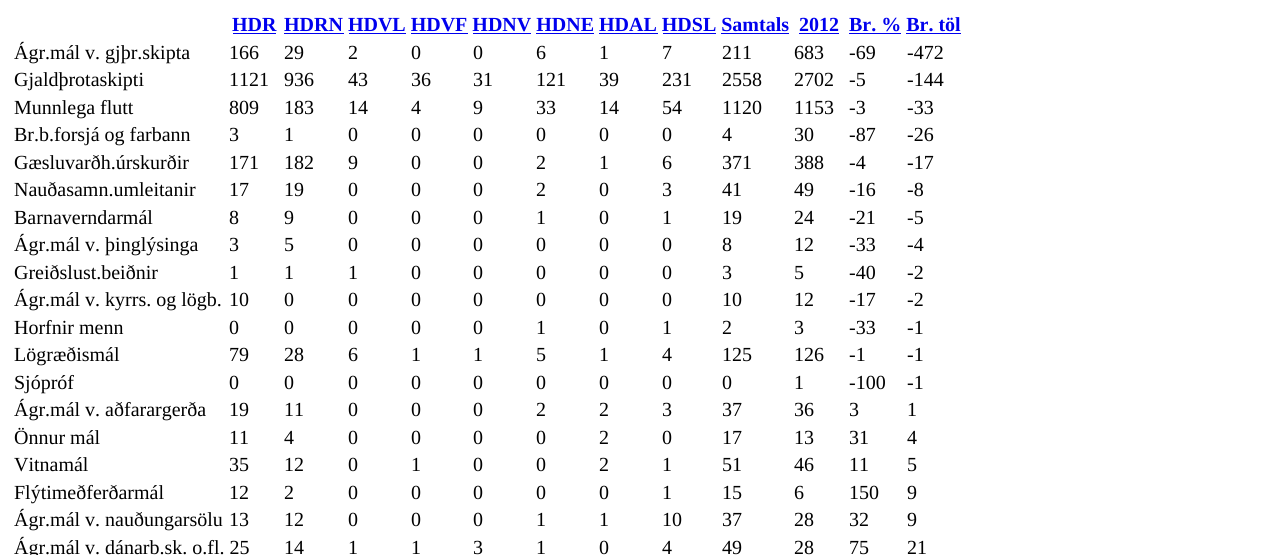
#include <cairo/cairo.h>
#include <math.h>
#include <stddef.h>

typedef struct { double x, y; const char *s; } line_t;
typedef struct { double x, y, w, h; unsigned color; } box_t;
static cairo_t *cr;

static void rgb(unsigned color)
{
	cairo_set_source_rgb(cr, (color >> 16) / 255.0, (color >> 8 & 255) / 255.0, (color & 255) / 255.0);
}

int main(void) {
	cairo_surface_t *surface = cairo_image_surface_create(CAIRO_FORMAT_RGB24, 1266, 555);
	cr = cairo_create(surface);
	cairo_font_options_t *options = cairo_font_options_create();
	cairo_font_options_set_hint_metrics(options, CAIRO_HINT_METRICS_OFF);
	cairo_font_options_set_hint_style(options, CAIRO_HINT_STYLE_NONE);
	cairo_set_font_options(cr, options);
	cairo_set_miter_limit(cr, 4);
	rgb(0xffffff);
	cairo_paint(cr);
	{
		static const box_t items[] = {
			{233, 33, 43, 1, 0x0000ee},
			{284, 33, 60, 1, 0x0000ee},
			{799, 33, 40, 1, 0x0000ee},
			{849, 33, 52, 1, 0x0000ee},
			{349, 33, 57, 1, 0x0000ee},
			{411, 33, 57, 1, 0x0000ee},
			{473, 33, 58, 1, 0x0000ee},
			{536, 33, 58, 1, 0x0000ee},
			{599, 33, 59, 1, 0x0000ee},
			{663, 33, 53, 1, 0x0000ee},
			{721, 33, 68, 1, 0x0000ee},
			{906, 33, 55, 1, 0x0000ee},
		};
		for (size_t i = 0; i < sizeof items / sizeof *items; i++) {
			rgb(items[i].color);
			cairo_rectangle(cr, items[i].x, items[i].y, items[i].w, items[i].h);
			cairo_fill(cr);
		}
	}
	cairo_select_font_face(cr, "Liberation Serif", CAIRO_FONT_SLANT_NORMAL, CAIRO_FONT_WEIGHT_BOLD);
	cairo_set_font_size(cr, 20);
	{
		static const line_t items[] = {
			{232, 31, "HDR"},
			{284, 31, "HDRN HDVL HDVF HDNV HDNE HDAL HDSL Samtals"},
			{799, 31, "2012"},
			{849, 31, "Br. % Br. töl"},
		};
		for (size_t i = 0; i < sizeof items / sizeof *items; i++) {
			cairo_move_to(cr, items[i].x, items[i].y);
			cairo_show_text(cr, items[i].s);
		}
	}
	cairo_select_font_face(cr, "Liberation Serif", CAIRO_FONT_SLANT_NORMAL, CAIRO_FONT_WEIGHT_NORMAL);
	rgb(0x000000);
	{
		static const line_t items[] = {
			{14, 59, "Ágr.mál v. gjþr.skipta"},
			{229, 59, "166"},
			{284, 59, "29"},
			{348, 59, "2"},
			{411, 59, "0"},
			{473, 59, "0"},
			{536, 59, "6"},
			{599, 59, "1"},
			{662, 59, "7"},
			{722, 59, "211"},
			{794, 59, "683"},
			{849, 59, "-69"},
			{907, 59, "-472"},
			{14, 86, "Gjaldþrotaskipti"},
			{229, 86, "1121"},
			{284, 86, "936"},
			{348, 86, "43"},
			{411, 86, "36"},
			{473, 86, "31"},
			{536, 86, "121"},
			{599, 86, "39"},
			{662, 86, "231"},
			{722, 86, "2558"},
			{794, 86, "2702"},
			{849, 86, "-5"},
			{907, 86, "-144"},
			{14, 114, "Munnlega flutt"},
			{229, 114, "809"},
			{284, 114, "183"},
			{348, 114, "14"},
			{411, 114, "4"},
			{473, 114, "9"},
			{536, 114, "33"},
			{599, 114, "14"},
			{662, 114, "54"},
			{722, 114, "1120"},
			{794, 114, "1153"},
			{849, 114, "-3"},
			{907, 114, "-33"},
			{14, 141, "Br.b.forsjá og farbann"},
			{229, 141, "3"},
			{284, 141, "1"},
			{348, 141, "0"},
			{411, 141, "0"},
			{473, 141, "0"},
			{536, 141, "0"},
			{599, 141, "0"},
			{662, 141, "0"},
			{722, 141, "4"},
			{794, 141, "30"},
			{849, 141, "-87"},
			{907, 141, "-26"},
			{14, 169, "Gæsluvarðh.úrskurðir"},
			{229, 169, "171"},
			{284, 169, "182"},
			{348, 169, "9"},
			{411, 169, "0"},
			{473, 169, "0"},
			{536, 169, "2"},
			{599, 169, "1"},
			{662, 169, "6"},
			{722, 169, "371"},
			{794, 169, "388"},
			{849, 169, "-4"},
			{907, 169, "-17"},
			{14, 196, "Nauðasamn.umleitanir"},
			{229, 196, "17"},
			{284, 196, "19"},
			{348, 196, "0"},
			{411, 196, "0"},
			{473, 196, "0"},
			{536, 196, "2"},
			{599, 196, "0"},
			{662, 196, "3"},
			{722, 196, "41"},
			{794, 196, "49"},
			{849, 196, "-16"},
			{907, 196, "-8"},
			{14, 224, "Barnaverndarmál"},
			{229, 224, "8"},
			{284, 224, "9"},
			{348, 224, "0"},
			{411, 224, "0"},
			{473, 224, "0"},
			{536, 224, "1"},
			{599, 224, "0"},
			{662, 224, "1"},
			{722, 224, "19"},
			{794, 224, "24"},
			{849, 224, "-21"},
			{907, 224, "-5"},
			{14, 251, "Ágr.mál v. þinglýsinga"},
			{229, 251, "3"},
			{284, 251, "5"},
			{348, 251, "0"},
			{411, 251, "0"},
			{473, 251, "0"},
			{536, 251, "0"},
			{599, 251, "0"},
			{662, 251, "0"},
			{722, 251, "8"},
			{794, 251, "12"},
			{849, 251, "-33"},
			{907, 251, "-4"},
			{14, 279, "Greiðslust.beiðnir"},
			{229, 279, "1"},
			{284, 279, "1"},
			{348, 279, "1"},
			{411, 279, "0"},
			{473, 279, "0"},
			{536, 279, "0"},
			{599, 279, "0"},
			{662, 279, "0"},
			{722, 279, "3"},
			{794, 279, "5"},
			{849, 279, "-40"},
			{907, 279, "-2"},
			{14, 306, "Ágr.mál v. kyrrs. og lögb."},
			{229, 306, "10"},
			{284, 306, "0"},
			{348, 306, "0"},
			{411, 306, "0"},
			{473, 306, "0"},
			{536, 306, "0"},
			{599, 306, "0"},
			{662, 306, "0"},
			{722, 306, "10"},
			{794, 306, "12"},
			{849, 306, "-17"},
			{907, 306, "-2"},
			{14, 334, "Horfnir menn"},
			{229, 334, "0"},
			{284, 334, "0"},
			{348, 334, "0"},
			{411, 334, "0"},
			{473, 334, "0"},
			{536, 334, "1"},
			{599, 334, "0"},
			{662, 334, "1"},
			{722, 334, "2"},
			{794, 334, "3"},
			{849, 334, "-33"},
			{907, 334, "-1"},
			{14, 361, "Lögræðismál"},
			{229, 361, "79"},
			{284, 361, "28"},
			{348, 361, "6"},
			{411, 361, "1"},
			{473, 361, "1"},
			{536, 361, "5"},
			{599, 361, "1"},
			{662, 361, "4"},
			{722, 361, "125"},
			{794, 361, "126"},
			{849, 361, "-1"},
			{907, 361, "-1"},
			{14, 389, "Sjópróf"},
			{229, 389, "0"},
			{284, 389, "0"},
			{348, 389, "0"},
			{411, 389, "0"},
			{473, 389, "0"},
			{536, 389, "0"},
			{599, 389, "0"},
			{662, 389, "0"},
			{722, 389, "0"},
			{794, 389, "1"},
			{849, 389, "-100"},
			{907, 389, "-1"},
			{14, 416, "Ágr.mál v. aðfarargerða"},
			{229, 416, "19"},
			{284, 416, "11"},
			{348, 416, "0"},
			{411, 416, "0"},
			{473, 416, "0"},
			{536, 416, "2"},
			{599, 416, "2"},
			{662, 416, "3"},
			{722, 416, "37"},
			{794, 416, "36"},
			{849, 416, "3"},
			{907, 416, "1"},
			{14, 444, "Önnur mál"},
			{229, 444, "11"},
			{284, 444, "4"},
			{348, 444, "0"},
			{411, 444, "0"},
			{473, 444, "0"},
			{536, 444, "0"},
			{599, 444, "2"},
			{662, 444, "0"},
			{722, 444, "17"},
			{794, 444, "13"},
			{849, 444, "31"},
			{907, 444, "4"},
			{14, 471, "Vitnamál"},
			{229, 471, "35"},
			{284, 471, "12"},
			{348, 471, "0"},
			{411, 471, "1"},
			{473, 471, "0"},
			{536, 471, "0"},
			{599, 471, "2"},
			{662, 471, "1"},
			{722, 471, "51"},
			{794, 471, "46"},
			{849, 471, "11"},
			{907, 471, "5"},
			{14, 499, "Flýtimeðferðarmál"},
			{229, 499, "12"},
			{284, 499, "2"},
			{348, 499, "0"},
			{411, 499, "0"},
			{473, 499, "0"},
			{536, 499, "0"},
			{599, 499, "0"},
			{662, 499, "1"},
			{722, 499, "15"},
			{794, 499, "6"},
			{849, 499, "150"},
			{907, 499, "9"},
			{14, 526, "Ágr.mál v. nauðungarsölu"},
			{229, 526, "13"},
			{284, 526, "12"},
			{348, 526, "0"},
			{411, 526, "0"},
			{473, 526, "0"},
			{536, 526, "1"},
			{599, 526, "1"},
			{662, 526, "10"},
			{722, 526, "37"},
			{794, 526, "28"},
			{849, 526, "32"},
			{907, 526, "9"},
			{14, 554, "Ágr.mál v. dánarb.sk. o.fl. 25"},
			{284, 554, "14"},
			{348, 554, "1"},
			{411, 554, "1"},
			{473, 554, "3"},
			{536, 554, "1"},
			{599, 554, "0"},
			{662, 554, "4"},
			{722, 554, "49"},
			{794, 554, "28"},
			{849, 554, "75"},
			{907, 554, "21"},
		};
		for (size_t i = 0; i < sizeof items / sizeof *items; i++) {
			cairo_move_to(cr, items[i].x, items[i].y);
			cairo_show_text(cr, items[i].s);
		}
	}
	cairo_surface_write_to_png(surface, "page.png");
	cairo_font_options_destroy(options);
	cairo_destroy(cr);
	cairo_surface_destroy(surface);
	return 0;
}
